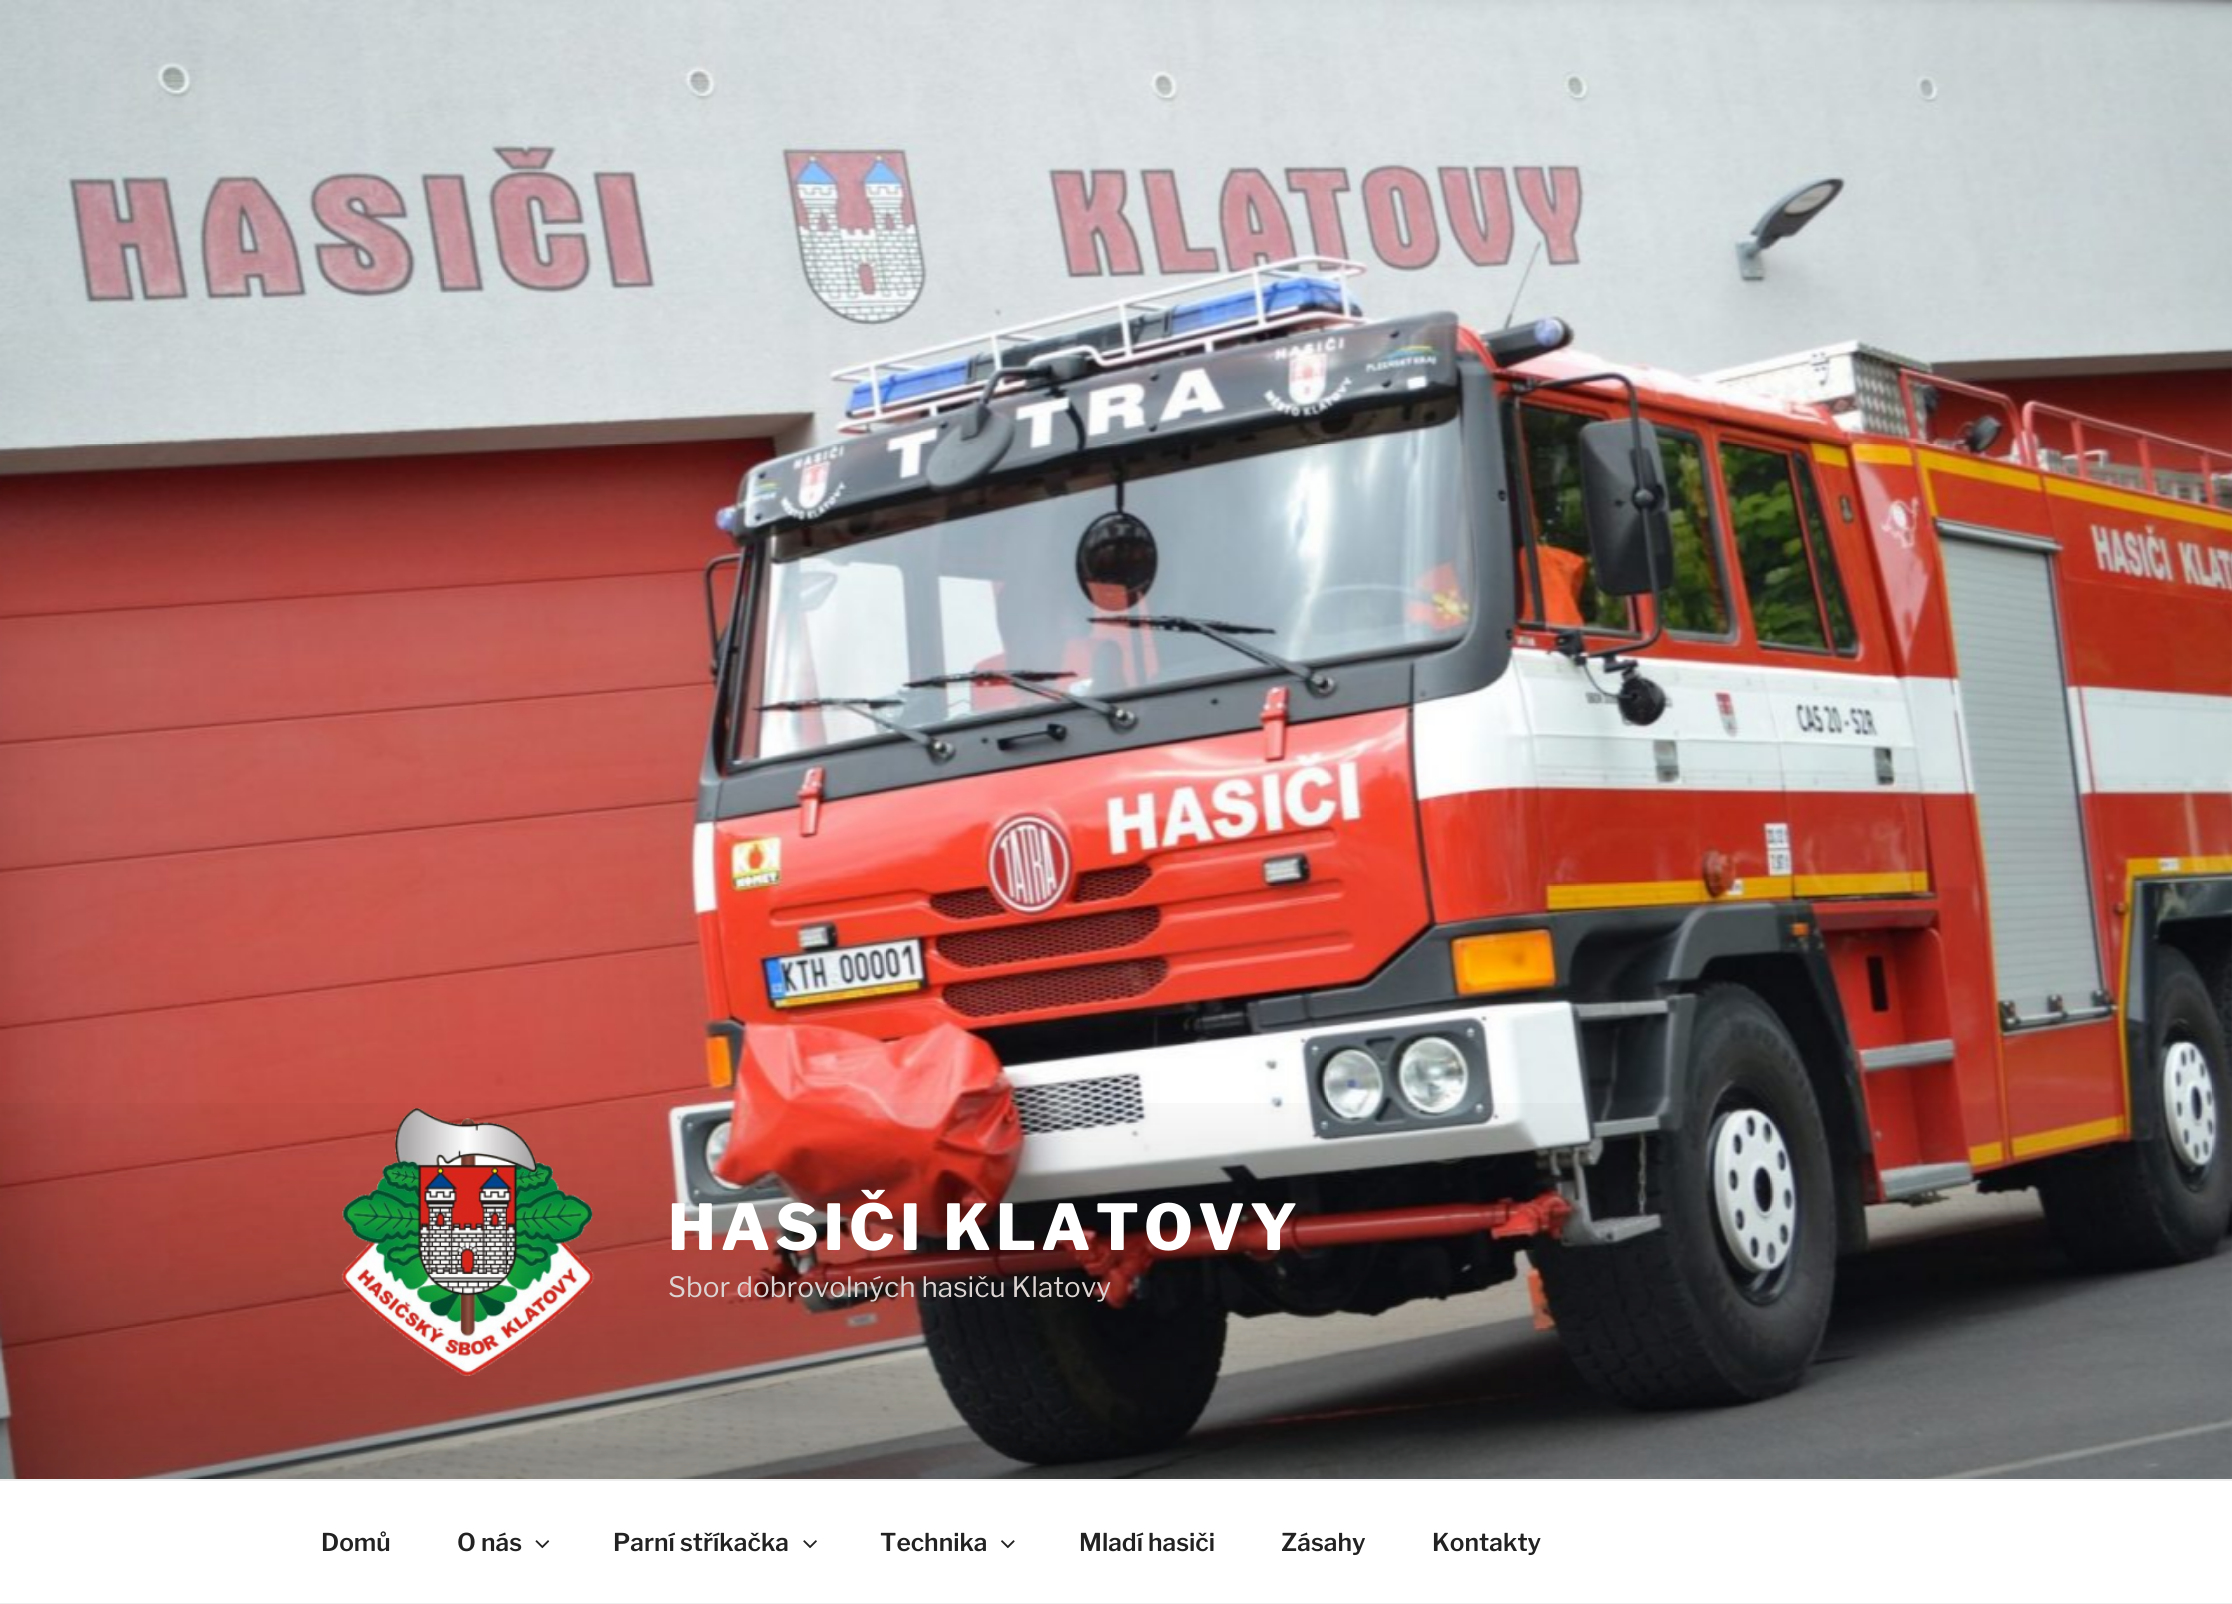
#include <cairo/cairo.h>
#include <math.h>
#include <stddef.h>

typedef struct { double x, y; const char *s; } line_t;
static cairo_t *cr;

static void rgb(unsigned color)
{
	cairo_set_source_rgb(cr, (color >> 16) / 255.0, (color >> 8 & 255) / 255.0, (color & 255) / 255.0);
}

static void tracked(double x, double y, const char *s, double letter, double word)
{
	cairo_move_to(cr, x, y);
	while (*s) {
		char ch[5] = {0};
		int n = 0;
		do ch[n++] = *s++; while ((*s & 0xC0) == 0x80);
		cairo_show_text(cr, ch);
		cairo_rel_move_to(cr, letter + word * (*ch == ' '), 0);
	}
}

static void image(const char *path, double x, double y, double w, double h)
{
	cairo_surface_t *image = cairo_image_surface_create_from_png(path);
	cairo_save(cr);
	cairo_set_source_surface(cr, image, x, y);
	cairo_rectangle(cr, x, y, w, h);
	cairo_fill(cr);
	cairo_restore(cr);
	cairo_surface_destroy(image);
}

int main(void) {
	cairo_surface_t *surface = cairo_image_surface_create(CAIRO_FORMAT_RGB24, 2232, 1604);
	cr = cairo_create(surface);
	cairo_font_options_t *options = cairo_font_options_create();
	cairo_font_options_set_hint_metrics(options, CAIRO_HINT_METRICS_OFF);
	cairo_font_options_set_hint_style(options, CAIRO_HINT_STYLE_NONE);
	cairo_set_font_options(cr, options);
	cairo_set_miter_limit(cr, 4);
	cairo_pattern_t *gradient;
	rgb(0xffffff);
	cairo_paint(cr);
	image("img/1.png", 0, 0, 2232, 1479);
	gradient = cairo_pattern_create_linear(1117, 1074, 1117, 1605);
	cairo_pattern_add_color_stop_rgba(gradient, 0, 0, 0, 0, 0);
	cairo_pattern_add_color_stop_rgba(gradient, 0.75, 0, 0, 0, 0.3);
	cairo_pattern_add_color_stop_rgba(gradient, 1, 0, 0, 0, 0.3);
	cairo_set_source(cr, gradient);
	cairo_pattern_destroy(gradient);
	cairo_rectangle(cr, 0, 1103, 2232, 376);
	cairo_fill(cr);
	image("img/2.png", 341, 1108, 254, 269);
	rgb(0xeeeeee);
	cairo_rectangle(cr, 0, 1479, 2232, 2);
	cairo_fill(cr);
	cairo_rectangle(cr, 0, 1603, 2232, 1);
	cairo_fill(cr);
	image("img/3.png", 535, 1540, 15, 9);
	image("img/4.png", 803, 1540, 14, 9);
	image("img/5.png", 1001, 1540, 14, 9);
	cairo_select_font_face(cr, "Libre Franklin Thin", CAIRO_FONT_SLANT_NORMAL, CAIRO_FONT_WEIGHT_NORMAL);
	cairo_set_font_size(cr, 63);
	rgb(0xffffff);
	tracked(668, 1250, "HASIČI KLATOVY", 5, 0);
	cairo_select_font_face(cr, "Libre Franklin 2 Thin", CAIRO_FONT_SLANT_NORMAL, CAIRO_FONT_WEIGHT_NORMAL);
	cairo_set_font_size(cr, 28);
	rgb(0xdcd4d3);
	cairo_move_to(cr, 668, 1297);
	cairo_show_text(cr, "Sbor dobrovolných hasiču Klatovy");
	cairo_select_font_face(cr, "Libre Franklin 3 Thin", CAIRO_FONT_SLANT_NORMAL, CAIRO_FONT_WEIGHT_NORMAL);
	cairo_set_font_size(cr, 24.5);
	rgb(0x222222);
	{
		static const line_t items[] = {
			{321, 1551, "Domů"},
			{457, 1551, "O nás"},
			{613, 1551, "Parní stříkačka"},
			{880, 1551, "Technika"},
			{1079, 1551, "Mladí hasiči"},
			{1281, 1551, "Zásahy"},
			{1432, 1551, "Kontakty"},
		};
		for (size_t i = 0; i < sizeof items / sizeof *items; i++) {
			cairo_move_to(cr, items[i].x, items[i].y);
			cairo_show_text(cr, items[i].s);
		}
	}
	cairo_surface_write_to_png(surface, "page.png");
	cairo_font_options_destroy(options);
	cairo_destroy(cr);
	cairo_surface_destroy(surface);
	return 0;
}
